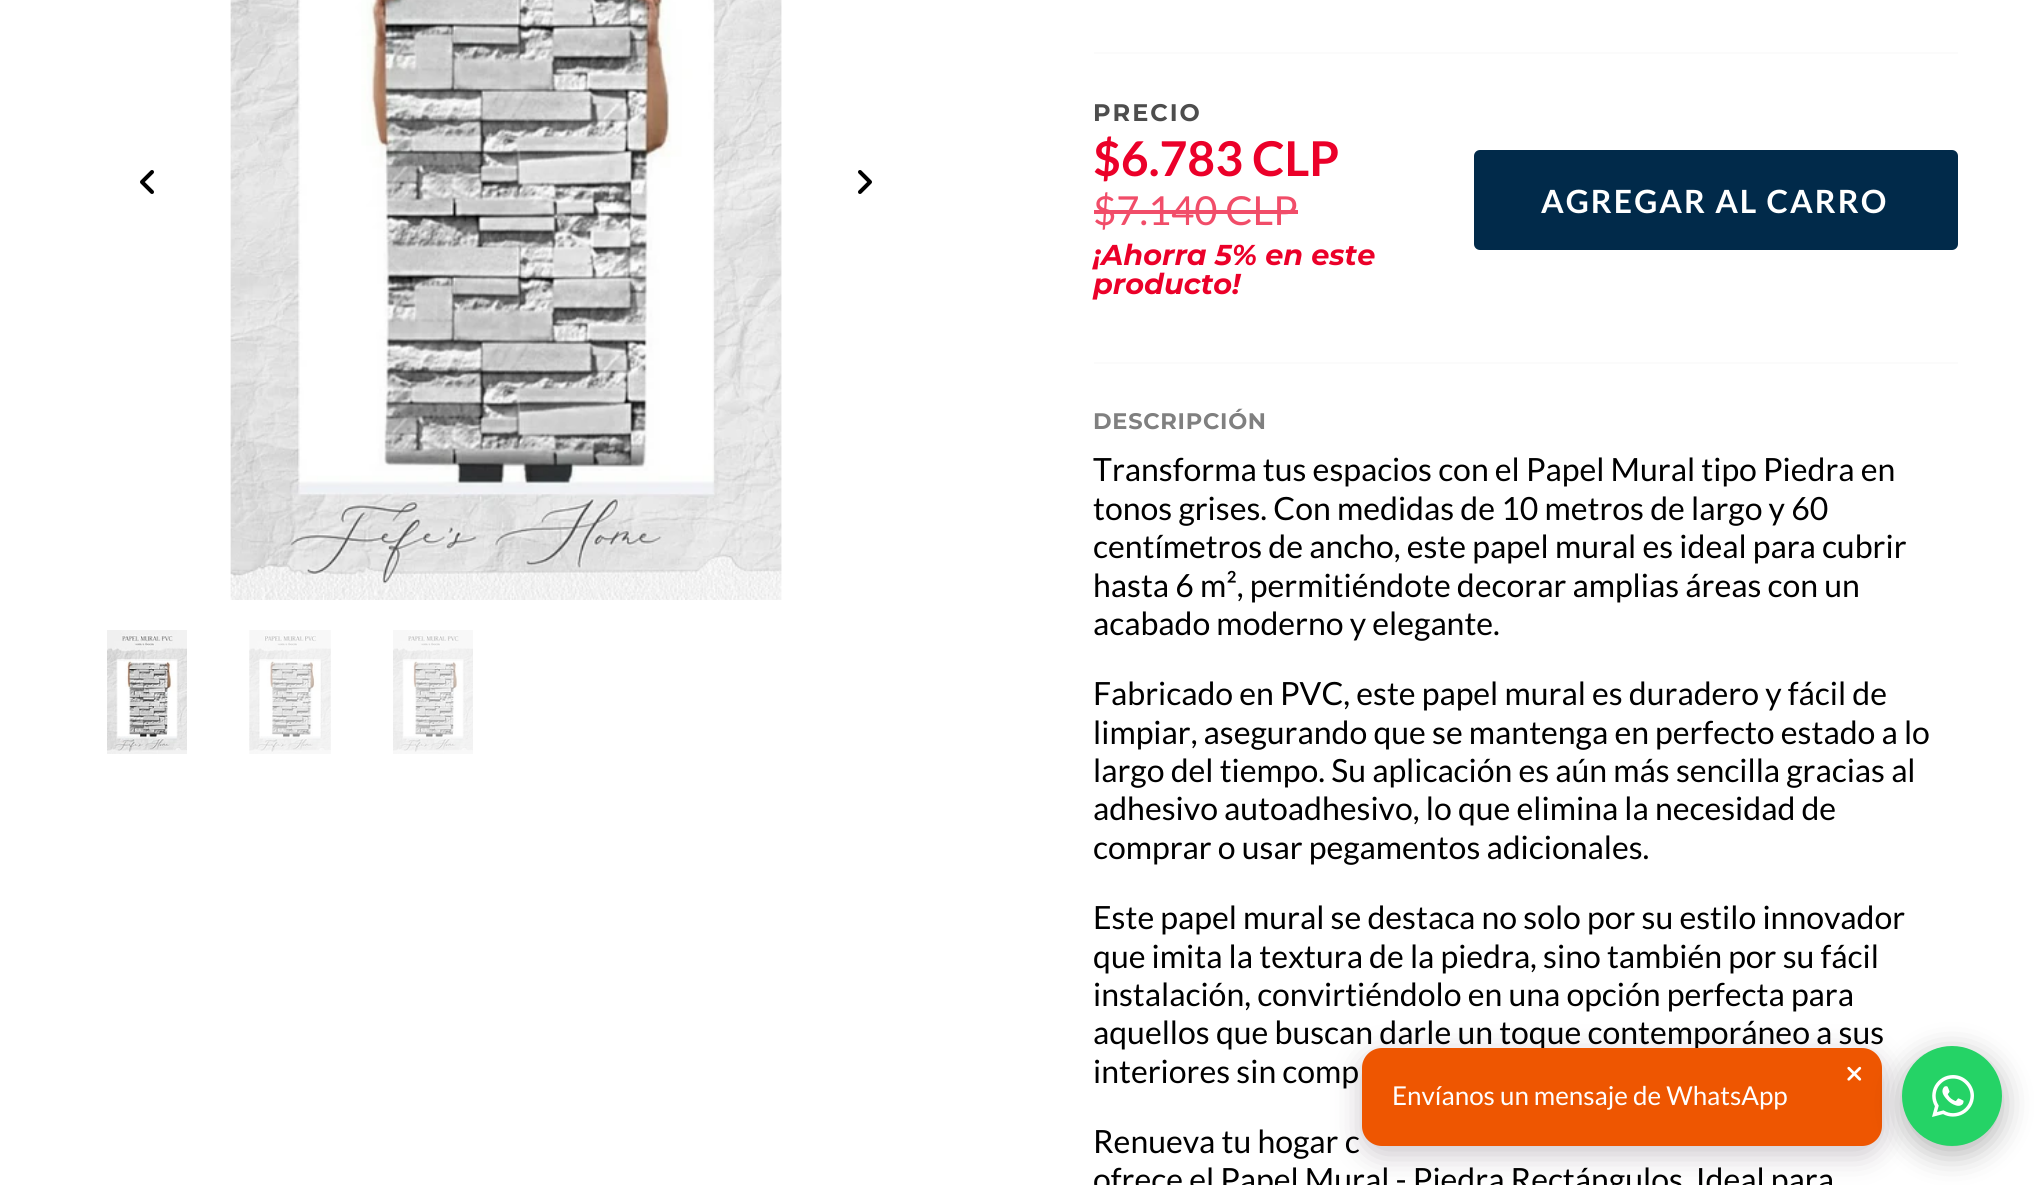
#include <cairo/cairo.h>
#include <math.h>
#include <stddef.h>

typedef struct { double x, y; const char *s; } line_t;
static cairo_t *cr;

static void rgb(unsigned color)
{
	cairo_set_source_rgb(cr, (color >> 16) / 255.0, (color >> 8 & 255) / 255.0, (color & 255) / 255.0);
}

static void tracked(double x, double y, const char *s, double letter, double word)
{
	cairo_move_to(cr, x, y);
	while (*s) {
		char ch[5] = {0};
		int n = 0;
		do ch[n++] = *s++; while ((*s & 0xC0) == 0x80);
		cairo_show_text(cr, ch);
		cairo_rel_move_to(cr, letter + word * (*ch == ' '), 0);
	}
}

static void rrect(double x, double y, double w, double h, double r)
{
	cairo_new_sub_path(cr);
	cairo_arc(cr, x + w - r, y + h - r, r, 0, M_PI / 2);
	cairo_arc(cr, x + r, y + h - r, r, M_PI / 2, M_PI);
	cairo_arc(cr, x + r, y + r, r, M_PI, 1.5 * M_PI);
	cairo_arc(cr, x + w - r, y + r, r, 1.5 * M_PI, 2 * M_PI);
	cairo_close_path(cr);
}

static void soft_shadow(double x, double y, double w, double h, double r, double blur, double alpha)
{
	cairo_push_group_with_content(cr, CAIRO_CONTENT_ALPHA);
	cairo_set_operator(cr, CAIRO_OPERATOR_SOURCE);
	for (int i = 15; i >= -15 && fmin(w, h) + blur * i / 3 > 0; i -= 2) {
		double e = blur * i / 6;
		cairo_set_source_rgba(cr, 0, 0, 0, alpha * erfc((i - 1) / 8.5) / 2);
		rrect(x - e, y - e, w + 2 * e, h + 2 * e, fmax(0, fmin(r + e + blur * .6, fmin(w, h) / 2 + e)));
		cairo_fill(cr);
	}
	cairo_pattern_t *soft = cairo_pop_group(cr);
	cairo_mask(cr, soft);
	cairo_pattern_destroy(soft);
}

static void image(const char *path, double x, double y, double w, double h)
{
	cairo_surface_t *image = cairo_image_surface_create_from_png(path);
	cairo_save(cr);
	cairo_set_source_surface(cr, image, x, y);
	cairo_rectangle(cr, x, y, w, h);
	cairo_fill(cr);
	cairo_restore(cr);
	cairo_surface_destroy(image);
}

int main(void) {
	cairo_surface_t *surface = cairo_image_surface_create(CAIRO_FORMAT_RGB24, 2041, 1185);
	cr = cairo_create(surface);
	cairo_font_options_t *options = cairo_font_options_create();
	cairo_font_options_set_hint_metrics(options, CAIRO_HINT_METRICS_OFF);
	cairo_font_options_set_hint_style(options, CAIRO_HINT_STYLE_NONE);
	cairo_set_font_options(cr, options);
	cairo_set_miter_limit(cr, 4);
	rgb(0xffffff);
	cairo_paint(cr);
	image("img/1.png", 140, 170, 14, 24);
	image("img/2.png", 230, 0, 552, 600);
	image("img/3.png", 858, 170, 14, 24);
	image("img/4.png", 107, 630, 80, 124);
	image("img/5.png", 249, 630, 82, 124);
	image("img/6.png", 393, 630, 80, 124);
	rgb(0xfbfbfb);
	cairo_rectangle(cr, 1094, 52, 864, 2);
	cairo_fill(cr);
	rgb(0xf14d69);
	cairo_rectangle(cr, 1094, 210, 204, 4);
	cairo_fill(cr);
	rgb(0x012a4a);
	rrect(1474, 150, 484, 100, 6);
	cairo_fill(cr);
	rgb(0xfbfbfb);
	cairo_rectangle(cr, 1094, 362, 864, 2);
	cairo_fill(cr);
	rgb(0x4b394b);
	soft_shadow(1362, 1056, 520, 98, 20, 15, 0.3);
	cairo_select_font_face(cr, "Montserrat", CAIRO_FONT_SLANT_NORMAL, CAIRO_FONT_WEIGHT_BOLD);
	cairo_set_font_size(cr, 24);
	rgb(0x4d4d4d);
	tracked(1093, 121, "PRECIO", 2, 0);
	cairo_select_font_face(cr, "Lato", CAIRO_FONT_SLANT_NORMAL, CAIRO_FONT_WEIGHT_BOLD);
	cairo_set_font_size(cr, 48);
	rgb(0xeb0029);
	cairo_move_to(cr, 1093, 176);
	cairo_show_text(cr, "$6.783 CLP");
	cairo_select_font_face(cr, "Lato", CAIRO_FONT_SLANT_NORMAL, CAIRO_FONT_WEIGHT_NORMAL);
	cairo_set_font_size(cr, 40);
	rgb(0xf14d69);
	cairo_move_to(cr, 1093, 225);
	cairo_show_text(cr, "$7.140 CLP");
	cairo_select_font_face(cr, "Montserrat", CAIRO_FONT_SLANT_ITALIC, CAIRO_FONT_WEIGHT_BOLD);
	cairo_set_font_size(cr, 28.75);
	rgb(0xeb0029);
	cairo_move_to(cr, 1093, 265);
	cairo_show_text(cr, "¡Ahorra 5% en este");
	cairo_move_to(cr, 1093, 294);
	cairo_show_text(cr, "producto!");
	cairo_select_font_face(cr, "Lato", CAIRO_FONT_SLANT_NORMAL, CAIRO_FONT_WEIGHT_BOLD);
	cairo_set_font_size(cr, 32);
	rgb(0xffffff);
	tracked(1541, 213, "AGREGAR AL CARRO", 2, 0);
	cairo_select_font_face(cr, "Montserrat", CAIRO_FONT_SLANT_NORMAL, CAIRO_FONT_WEIGHT_BOLD);
	cairo_set_font_size(cr, 22.5);
	rgb(0x808080);
	tracked(1093, 429, "DESCRIPCIÓN", 0.75, 0);
	cairo_select_font_face(cr, "Lato", CAIRO_FONT_SLANT_NORMAL, CAIRO_FONT_WEIGHT_NORMAL);
	cairo_set_font_size(cr, 32);
	rgb(0x000000);
	{
		static const line_t items[] = {
			{1093, 481, "Transforma tus espacios con el Papel Mural tipo Piedra en"},
			{1093, 520, "tonos grises. Con medidas de 10 metros de largo y 60"},
			{1093, 558, "centímetros de ancho, este papel mural es ideal para cubrir"},
			{1093, 597, "hasta 6 m², permitiéndote decorar amplias áreas con un"},
			{1093, 635, "acabado moderno y elegante."},
			{1093, 705, "Fabricado en PVC, este papel mural es duradero y fácil de"},
			{1093, 744, "limpiar, asegurando que se mantenga en perfecto estado a lo"},
			{1093, 782, "largo del tiempo. Su aplicación es aún más sencilla gracias al"},
			{1093, 820, "adhesivo autoadhesivo, lo que elimina la necesidad de"},
			{1093, 859, "comprar o usar pegamentos adicionales."},
			{1093, 929, "Este papel mural se destaca no solo por su estilo innovador"},
			{1093, 968, "que imita la textura de la piedra, sino también por su fácil"},
			{1093, 1006, "instalación, convirtiéndolo en una opción perfecta para"},
			{1093, 1044, "aquellos que buscan darle un toque contemporáneo a sus"},
			{1093, 1083, "interiores sin comp"},
			{1093, 1153, "Renueva tu hogar c"},
			{1093, 1191, "ofrece el Papel Mural - Piedra Rectángulos. Ideal para"},
		};
		for (size_t i = 0; i < sizeof items / sizeof *items; i++) {
			cairo_move_to(cr, items[i].x, items[i].y);
			cairo_show_text(cr, items[i].s);
		}
	}
	rgb(0xee5601);
	rrect(1362, 1048, 520, 98, 20);
	cairo_fill(cr);
	image("img/7.png", 1847, 1066, 15, 15);
	cairo_set_font_size(cr, 26);
	rgb(0xffffff);
	cairo_move_to(cr, 1392, 1105);
	cairo_show_text(cr, "Envíanos un mensaje de WhatsApp");
	rgb(0x000000);
	soft_shadow(1902, 1054, 100, 100, 50, 15, 0.3);
	rgb(0x25d366);
	cairo_arc(cr, 1952, 1096, 50, 0, 2 * M_PI);
	cairo_fill(cr);
	image("img/8.png", 1932, 1075, 42, 42);
	cairo_surface_write_to_png(surface, "page.png");
	cairo_font_options_destroy(options);
	cairo_destroy(cr);
	cairo_surface_destroy(surface);
	return 0;
}
